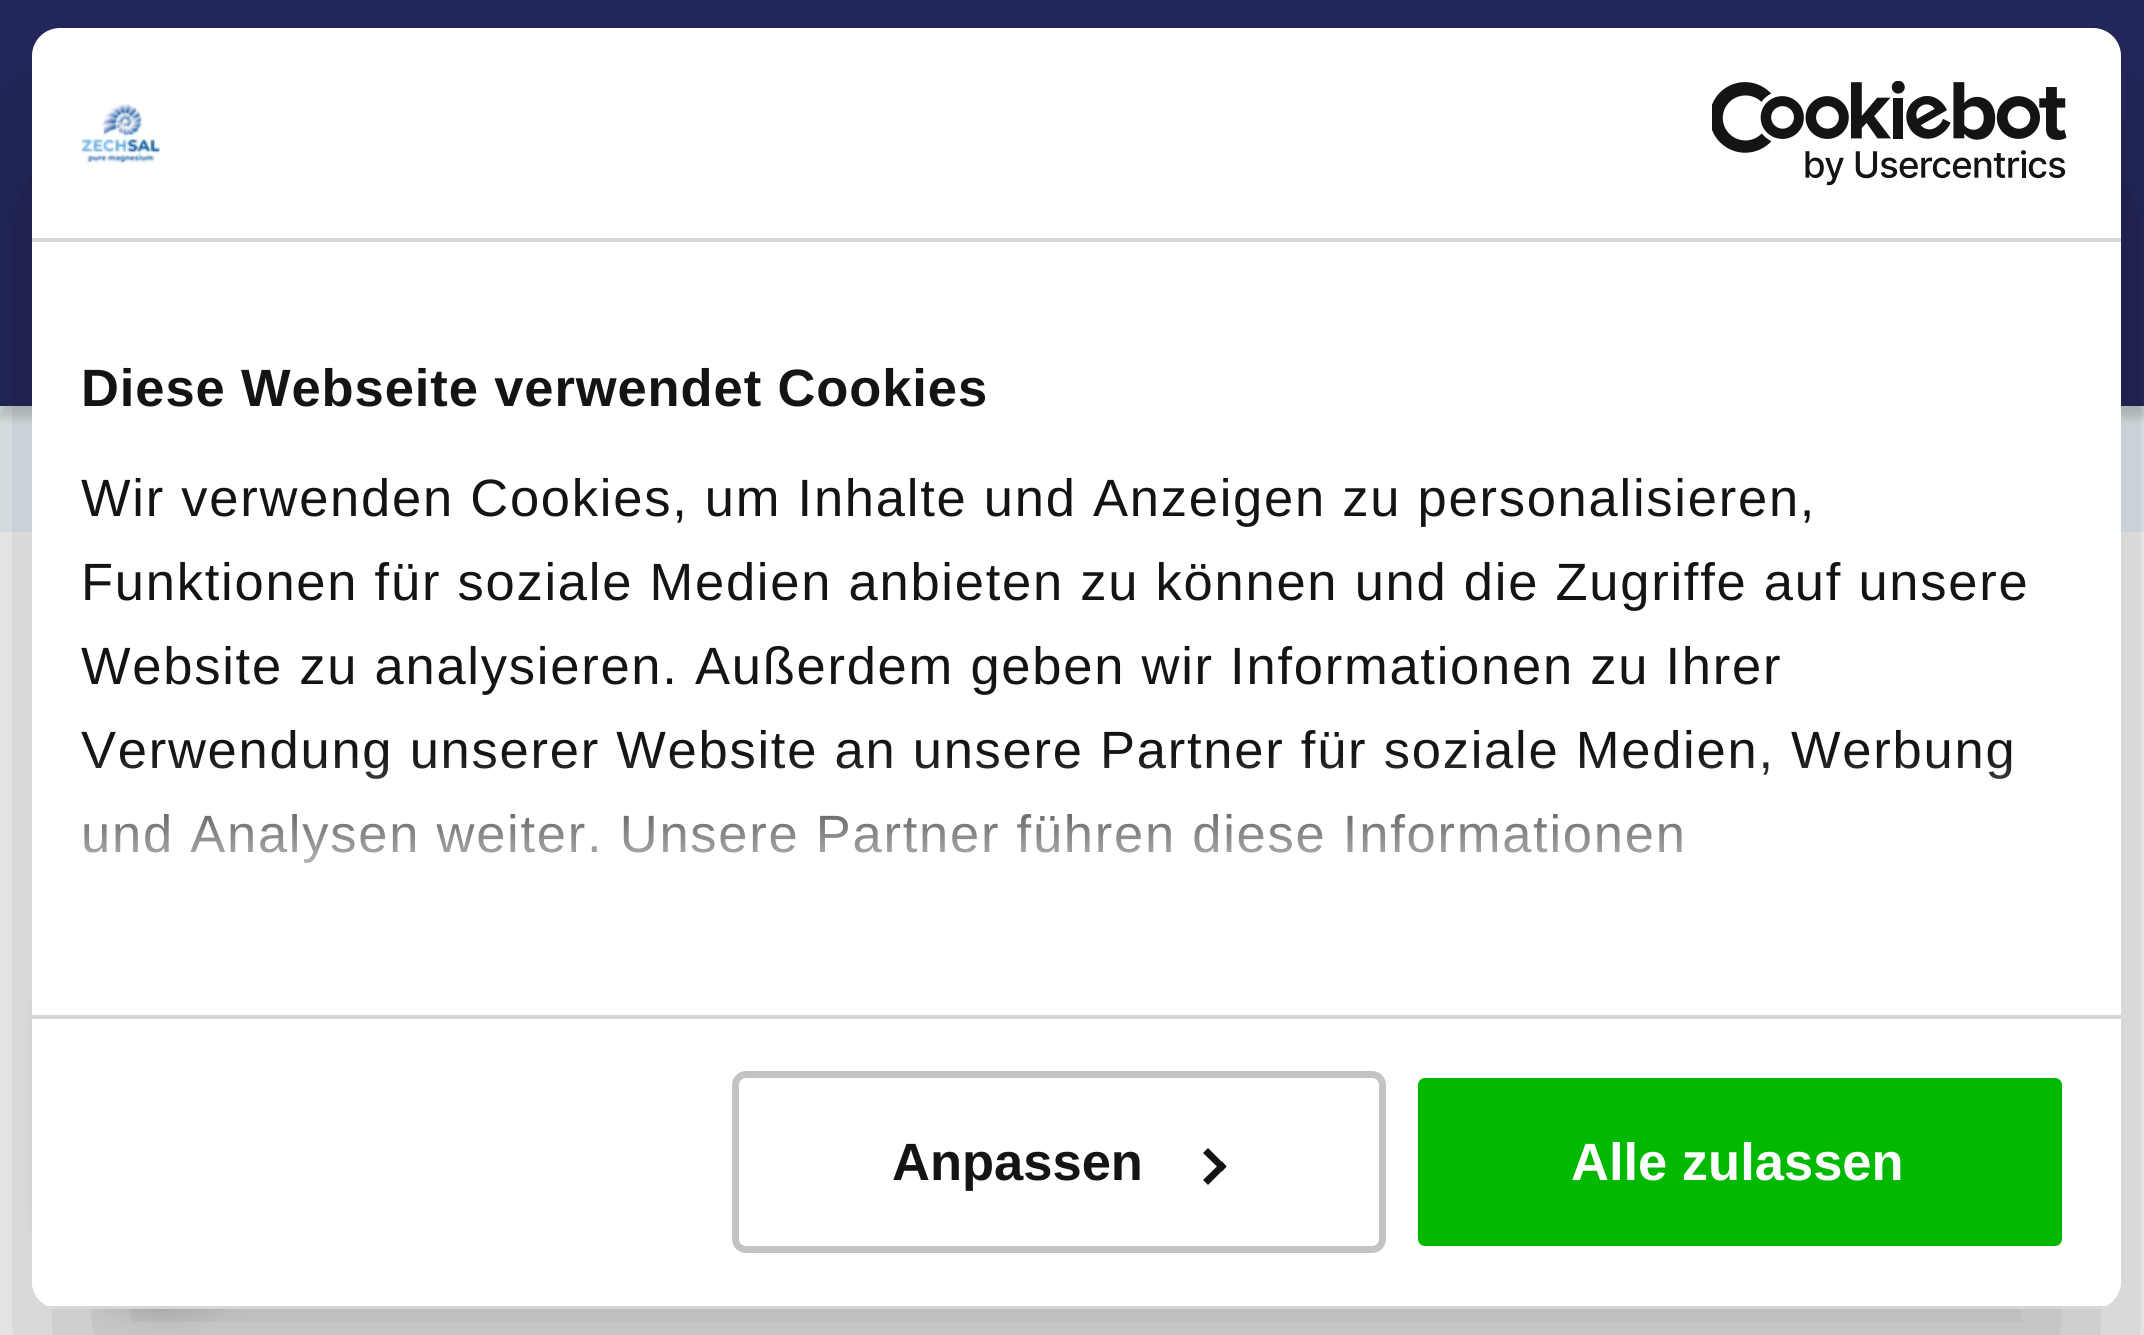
#include <cairo/cairo.h>
#include <math.h>
#include <stddef.h>

typedef struct { double x, y; const char *s; } line_t;
static cairo_t *cr;

static void rgb(unsigned color)
{
	cairo_set_source_rgb(cr, (color >> 16) / 255.0, (color >> 8 & 255) / 255.0, (color & 255) / 255.0);
}

static void tracked(double x, double y, const char *s, double letter, double word)
{
	cairo_move_to(cr, x, y);
	while (*s) {
		char ch[5] = {0};
		int n = 0;
		do ch[n++] = *s++; while ((*s & 0xC0) == 0x80);
		cairo_show_text(cr, ch);
		cairo_rel_move_to(cr, letter + word * (*ch == ' '), 0);
	}
}

static void rrect(double x, double y, double w, double h, double r)
{
	cairo_new_sub_path(cr);
	cairo_arc(cr, x + w - r, y + h - r, r, 0, M_PI / 2);
	cairo_arc(cr, x + r, y + h - r, r, M_PI / 2, M_PI);
	cairo_arc(cr, x + r, y + r, r, M_PI, 1.5 * M_PI);
	cairo_arc(cr, x + w - r, y + r, r, 1.5 * M_PI, 2 * M_PI);
	cairo_close_path(cr);
}

static void soft_shadow(double x, double y, double w, double h, double r, double blur, double alpha)
{
	cairo_push_group_with_content(cr, CAIRO_CONTENT_ALPHA);
	cairo_set_operator(cr, CAIRO_OPERATOR_SOURCE);
	for (int i = 15; i >= -15 && fmin(w, h) + blur * i / 3 > 0; i -= 2) {
		double e = blur * i / 6;
		cairo_set_source_rgba(cr, 0, 0, 0, alpha * erfc((i - 1) / 8.5) / 2);
		rrect(x - e, y - e, w + 2 * e, h + 2 * e, fmax(0, fmin(r + e + blur * .6, fmin(w, h) / 2 + e)));
		cairo_fill(cr);
	}
	cairo_pattern_t *soft = cairo_pop_group(cr);
	cairo_mask(cr, soft);
	cairo_pattern_destroy(soft);
}

static void image(const char *path, double x, double y, double w, double h)
{
	cairo_surface_t *image = cairo_image_surface_create_from_png(path);
	cairo_save(cr);
	cairo_set_source_surface(cr, image, x, y);
	cairo_rectangle(cr, x, y, w, h);
	cairo_fill(cr);
	cairo_restore(cr);
	cairo_surface_destroy(image);
}

int main(void) {
	cairo_surface_t *surface = cairo_image_surface_create(CAIRO_FORMAT_RGB24, 2144, 1335);
	cr = cairo_create(surface);
	cairo_font_options_t *options = cairo_font_options_create();
	cairo_font_options_set_hint_metrics(options, CAIRO_HINT_METRICS_OFF);
	cairo_font_options_set_hint_style(options, CAIRO_HINT_STYLE_NONE);
	cairo_set_font_options(cr, options);
	cairo_set_miter_limit(cr, 4);
	cairo_pattern_t *gradient;
	rgb(0xffffff);
	cairo_paint(cr);
	rgb(0x24285d);
	cairo_rectangle(cr, 0, 0, 2144, 406);
	cairo_fill(cr);
	rgb(0xecf7fb);
	cairo_rectangle(cr, 0, 406, 2144, 126);
	cairo_fill(cr);
	cairo_save(cr);
	cairo_rectangle(cr, 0, 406, 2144, 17);
	cairo_clip(cr);
	rgb(0x000000);
	soft_shadow(0, 207, 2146, 210, 0, 5, 0.16);
	cairo_restore(cr);
	cairo_save(cr);
	cairo_set_fill_rule(cr, CAIRO_FILL_RULE_EVEN_ODD);
	cairo_new_path(cr);
	cairo_move_to(cr, 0, 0);
	cairo_line_to(cr, 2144, 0);
	cairo_line_to(cr, 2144, 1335);
	cairo_line_to(cr, 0, 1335);
	cairo_close_path(cr);
	cairo_move_to(cr, 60, 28);
	cairo_line_to(cr, 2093, 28);
	cairo_curve_to(cr, 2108.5, 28, 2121, 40.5, 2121, 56);
	cairo_line_to(cr, 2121, 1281);
	cairo_curve_to(cr, 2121, 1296.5, 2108.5, 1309, 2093, 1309);
	cairo_line_to(cr, 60, 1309);
	cairo_curve_to(cr, 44.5, 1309, 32, 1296.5, 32, 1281);
	cairo_line_to(cr, 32, 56);
	cairo_curve_to(cr, 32, 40.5, 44.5, 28, 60, 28);
	cairo_close_path(cr);
	cairo_clip(cr);
	rgb(0x000000);
	soft_shadow(32, 140, 2089, 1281, 28, 119, 0.3);
	cairo_restore(cr);
	rgb(0x000000);
	soft_shadow(46, 921, 238, 392, 119, 14, 0.15);
	soft_shadow(39, 914, 238, 392, 119, 3.5, 0.15);
	rgb(0xffffff);
	rrect(32, 28, 2089, 1281, 28);
	cairo_fill(cr);
	rgb(0xd6d6d6);
	cairo_rectangle(cr, 32, 238, 2089, 4);
	cairo_fill(cr);
	image("img/1.png", 81, 104, 79, 60);
	image("img/2.png", 1712, 81, 355, 105);
	cairo_rectangle(cr, 32, 1015, 2089, 4);
	cairo_fill(cr);
	cairo_save(cr);
	rrect(32, 28, 2089, 1281, 28);
	cairo_clip(cr);
	cairo_rectangle(cr, 47, 1306, 2059, 3);
	cairo_fill(cr);
	cairo_restore(cr);
	rrect(735.5, 1074.5, 647, 175, 10.5);
	rgb(0xc3c3c3);
	cairo_set_line_width(cr, 7);
	cairo_stroke(cr);
	rgb(0x141414);
	cairo_new_path(cr);
	cairo_move_to(cr, 1208, 1148);
	cairo_line_to(cr, 1226.5, 1166.5);
	cairo_line_to(cr, 1222, 1171.5);
	cairo_line_to(cr, 1203, 1153);
	cairo_close_path(cr);
	cairo_fill(cr);
	cairo_new_path(cr);
	cairo_move_to(cr, 1222, 1161.5);
	cairo_line_to(cr, 1226.5, 1166.5);
	cairo_line_to(cr, 1208, 1185);
	cairo_line_to(cr, 1203, 1180);
	cairo_close_path(cr);
	cairo_fill(cr);
	rgb(0x00b900);
	rrect(1414.5, 1074.5, 651, 175, 10.5);
	cairo_fill_preserve(cr);
	rgb(0xffffff);
	cairo_stroke(cr);
	cairo_select_font_face(cr, "Liberation Sans", CAIRO_FONT_SLANT_NORMAL, CAIRO_FONT_WEIGHT_BOLD);
	cairo_set_font_size(cr, 52.5);
	rgb(0x141414);
	tracked(81, 406, "Diese Webseite verwendet Cookies", 0.9, 0);
	cairo_select_font_face(cr, "Liberation Sans", CAIRO_FONT_SLANT_NORMAL, CAIRO_FONT_WEIGHT_NORMAL);
	{
		static const line_t items[] = {
			{81, 516, "Wir verwenden Cookies, um Inhalte und Anzeigen zu personalisieren,"},
			{81, 600, "Funktionen für soziale Medien anbieten zu können und die Zugriffe auf unsere"},
			{81, 684, "Website zu analysieren. Außerdem geben wir Informationen zu Ihrer"},
			{81, 768, "Verwendung unserer Website an unsere Partner für soziale Medien, Werbung"},
			{81, 852, "und Analysen weiter. Unsere Partner führen diese Informationen"},
		};
		for (size_t i = 0; i < sizeof items / sizeof *items; i++) {
			tracked(items[i].x, items[i].y, items[i].s, 1.75, 0);
		}
	}
	gradient = cairo_pattern_create_linear(1052, 1015, 1052, 753);
	cairo_pattern_add_color_stop_rgba(gradient, 0, 1, 1, 1, 1);
	cairo_pattern_add_color_stop_rgba(gradient, 0.5, 1, 1, 1, 0.8);
	cairo_pattern_add_color_stop_rgba(gradient, 1, 1, 1, 1, 0);
	cairo_set_source(cr, gradient);
	cairo_pattern_destroy(gradient);
	cairo_rectangle(cr, 83, 757, 1928, 106);
	cairo_fill(cr);
	cairo_select_font_face(cr, "Liberation Sans", CAIRO_FONT_SLANT_NORMAL, CAIRO_FONT_WEIGHT_BOLD);
	rgb(0x141414);
	cairo_move_to(cr, 892, 1180);
	cairo_show_text(cr, "Anpassen");
	rgb(0xffffff);
	cairo_move_to(cr, 1571, 1180);
	cairo_show_text(cr, "Alle zulassen");
	cairo_surface_write_to_png(surface, "page.png");
	cairo_font_options_destroy(options);
	cairo_destroy(cr);
	cairo_surface_destroy(surface);
	return 0;
}
